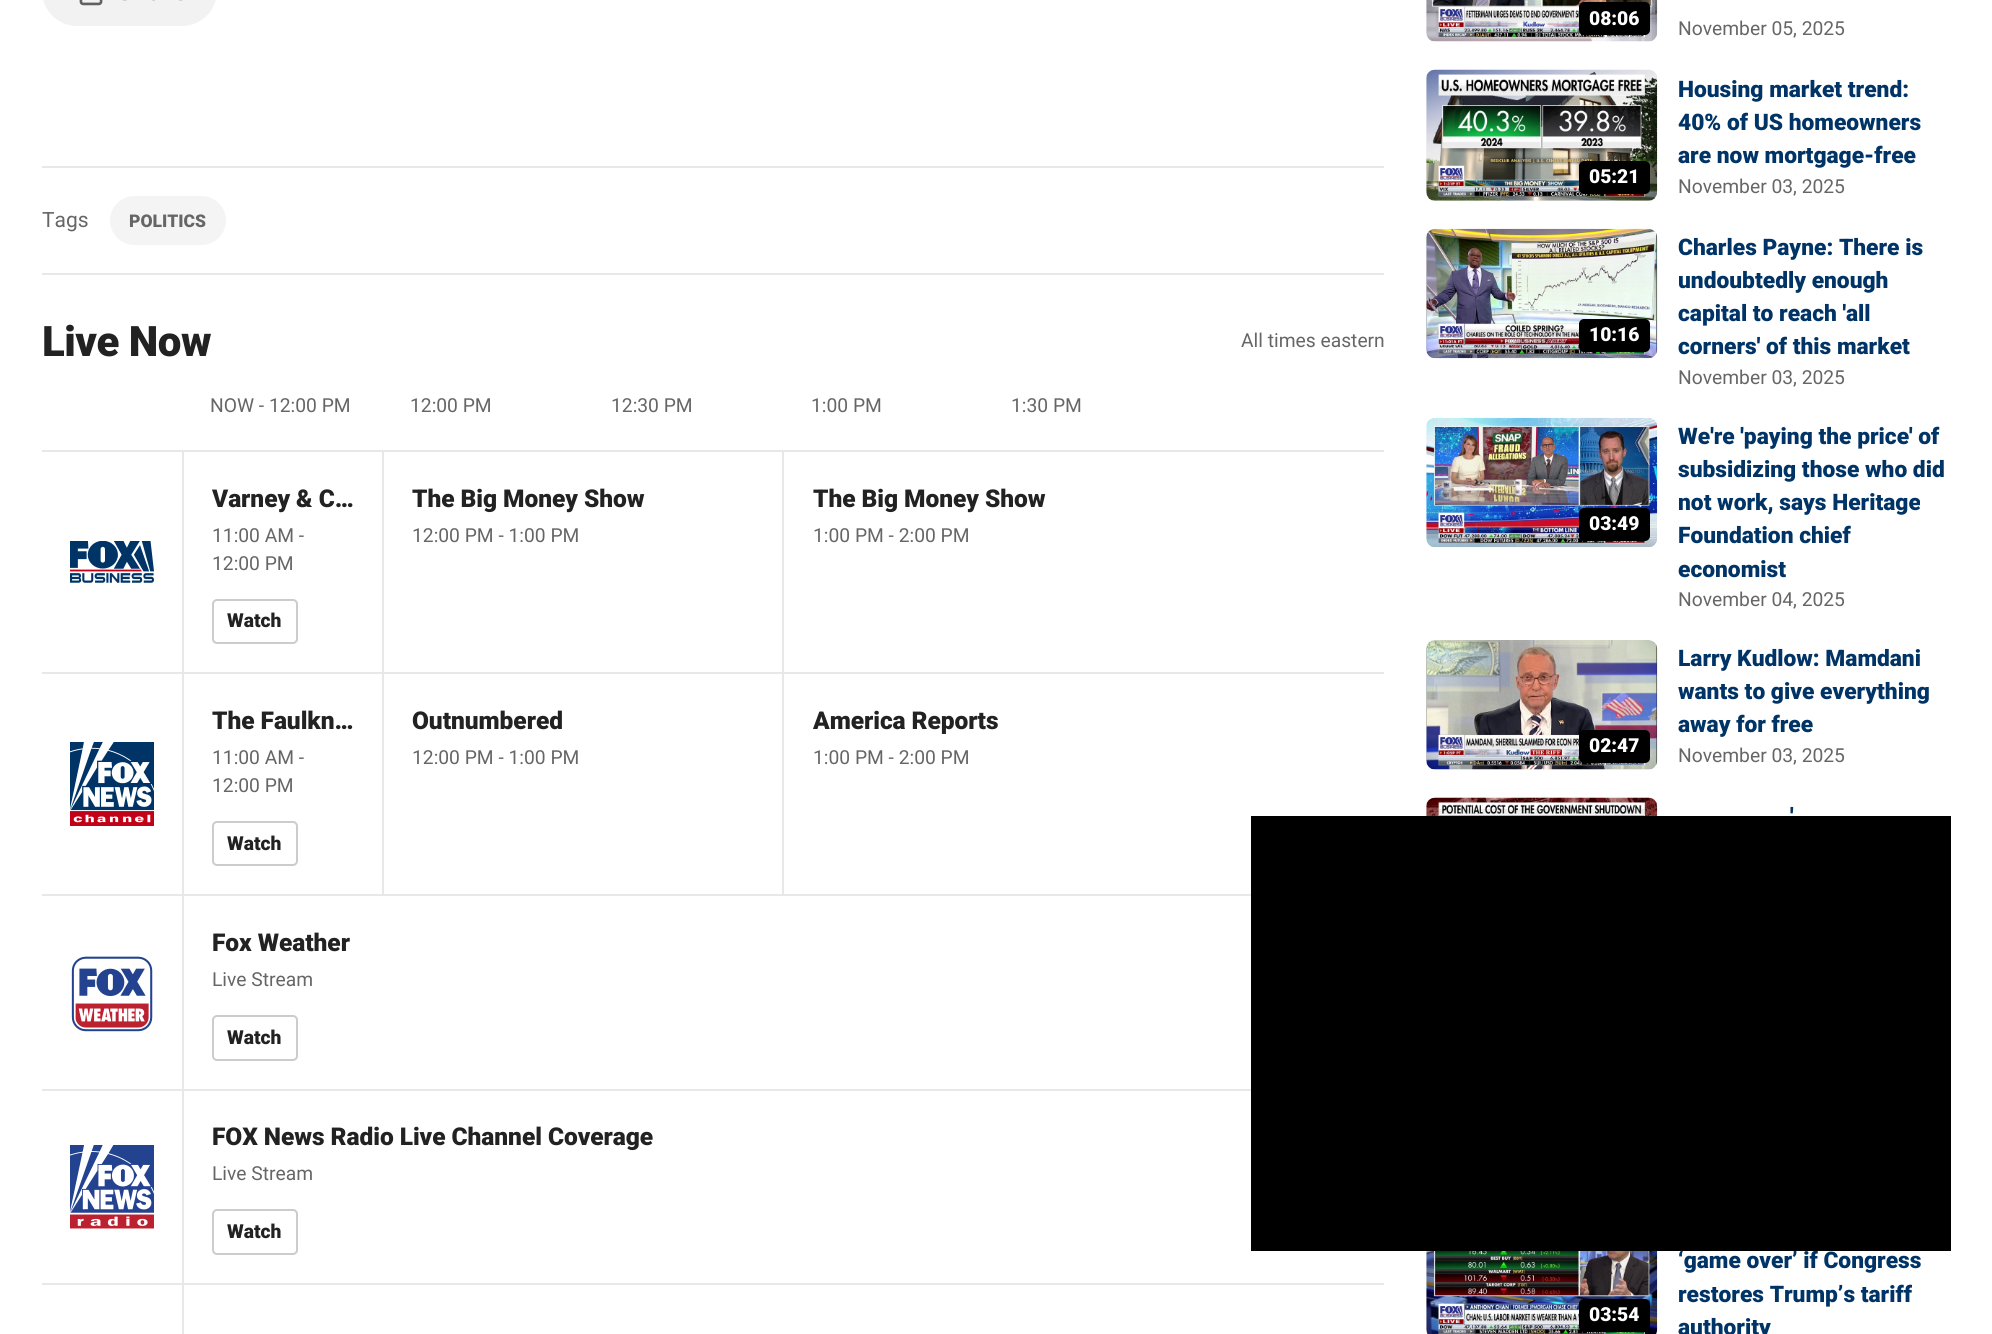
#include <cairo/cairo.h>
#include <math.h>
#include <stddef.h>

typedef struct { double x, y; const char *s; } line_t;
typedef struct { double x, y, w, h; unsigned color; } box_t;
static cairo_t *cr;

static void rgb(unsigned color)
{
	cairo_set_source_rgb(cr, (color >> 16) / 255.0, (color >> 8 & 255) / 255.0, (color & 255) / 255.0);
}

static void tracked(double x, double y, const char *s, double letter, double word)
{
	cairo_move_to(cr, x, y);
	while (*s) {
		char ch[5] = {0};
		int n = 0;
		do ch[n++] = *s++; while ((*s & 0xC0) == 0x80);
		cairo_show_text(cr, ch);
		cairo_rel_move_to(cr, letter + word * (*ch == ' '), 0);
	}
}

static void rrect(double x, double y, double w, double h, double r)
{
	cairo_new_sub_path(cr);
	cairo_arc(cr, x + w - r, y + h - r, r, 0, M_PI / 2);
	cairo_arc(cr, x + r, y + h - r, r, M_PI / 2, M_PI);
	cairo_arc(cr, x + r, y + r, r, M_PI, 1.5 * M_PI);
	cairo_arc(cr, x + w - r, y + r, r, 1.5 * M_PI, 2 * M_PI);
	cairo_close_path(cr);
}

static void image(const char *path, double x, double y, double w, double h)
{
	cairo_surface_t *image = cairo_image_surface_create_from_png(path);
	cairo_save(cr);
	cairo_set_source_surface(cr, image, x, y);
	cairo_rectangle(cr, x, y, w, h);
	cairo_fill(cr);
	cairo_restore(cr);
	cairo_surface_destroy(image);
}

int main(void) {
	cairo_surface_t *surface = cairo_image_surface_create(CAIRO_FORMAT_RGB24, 1992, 1334);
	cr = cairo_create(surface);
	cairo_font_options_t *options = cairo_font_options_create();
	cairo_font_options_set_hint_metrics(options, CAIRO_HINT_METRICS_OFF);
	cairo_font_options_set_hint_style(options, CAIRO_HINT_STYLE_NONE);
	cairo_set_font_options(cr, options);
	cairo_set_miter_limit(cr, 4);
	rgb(0xffffff);
	cairo_paint(cr);
	rgb(0xe8e8e8);
	cairo_rectangle(cr, 42, 273, 1342, 2);
	cairo_fill(cr);
	cairo_rectangle(cr, 42, 166, 1342, 2);
	cairo_fill(cr);
	image("img/1.png", 43, 0, 173, 26);
	rgb(0xf4f4f4);
	rrect(111, 197, 114, 47, 23.5);
	cairo_fill_preserve(cr);
	cairo_stroke(cr);
	rgb(0xe8e8e8);
	cairo_rectangle(cr, 42, 450, 1342, 2);
	cairo_fill(cr);
	image("img/2.png", 70, 541, 84, 42);
	cairo_rectangle(cr, 182, 452, 2, 220);
	cairo_fill(cr);
	rrect(213, 600, 84, 43, 4);
	rgb(0xcccccc);
	cairo_stroke(cr);
	{
		static const box_t items[] = {
			{382, 452, 2, 220, 0xe8e8e8},
			{782, 452, 2, 220, 0xe8e8e8},
			{42, 672, 1342, 2, 0xe8e8e8},
		};
		for (size_t i = 0; i < sizeof items / sizeof *items; i++) {
			rgb(items[i].color);
			cairo_rectangle(cr, items[i].x, items[i].y, items[i].w, items[i].h);
			cairo_fill(cr);
		}
	}
	image("img/3.png", 70, 742, 84, 84);
	cairo_rectangle(cr, 182, 674, 2, 220);
	cairo_fill(cr);
	rrect(213, 822, 84, 43, 4);
	rgb(0xcccccc);
	cairo_stroke(cr);
	{
		static const box_t items[] = {
			{382, 674, 2, 220, 0xe8e8e8},
			{782, 674, 2, 220, 0xe8e8e8},
			{42, 894, 1209, 2, 0xe8e8e8},
		};
		for (size_t i = 0; i < sizeof items / sizeof *items; i++) {
			rgb(items[i].color);
			cairo_rectangle(cr, items[i].x, items[i].y, items[i].w, items[i].h);
			cairo_fill(cr);
		}
	}
	image("img/4.png", 71, 956, 82, 76);
	cairo_rectangle(cr, 182, 896, 2, 193);
	cairo_fill(cr);
	rrect(213, 1016, 84, 44, 4);
	rgb(0xcccccc);
	cairo_stroke(cr);
	rgb(0xe8e8e8);
	cairo_rectangle(cr, 42, 1089, 1209, 2);
	cairo_fill(cr);
	image("img/5.png", 70, 1145, 84, 84);
	cairo_rectangle(cr, 182, 1090, 2, 193);
	cairo_fill(cr);
	rrect(213, 1210, 84, 44, 4);
	rgb(0xcccccc);
	cairo_stroke(cr);
	rgb(0xe8e8e8);
	cairo_rectangle(cr, 42, 1283, 1342, 2);
	cairo_fill(cr);
	cairo_rectangle(cr, 182, 1285, 2, 49);
	cairo_fill(cr);
	image("img/6.png", 1426, 0, 232, 42);
	rgb(0x000000);
	rrect(1579, 2, 71, 33, 5);
	cairo_fill(cr);
	image("img/7.png", 1426, 69, 232, 132);
	rrect(1579, 161, 71, 33, 5);
	cairo_fill(cr);
	image("img/8.png", 1426, 228, 232, 131);
	rrect(1579, 319, 71, 33, 5);
	cairo_fill(cr);
	image("img/9.png", 1426, 417, 232, 131);
	rrect(1579, 508, 71, 33, 5);
	cairo_fill(cr);
	image("img/10.png", 1426, 640, 232, 130);
	rrect(1579, 730, 71, 33, 5);
	cairo_fill(cr);
	image("img/11.png", 1426, 797, 232, 19);
	image("img/12.png", 1426, 1251, 232, 83);
	rrect(1579, 1299, 71, 33, 5);
	cairo_fill(cr);
	cairo_select_font_face(cr, "Roboto", CAIRO_FONT_SLANT_NORMAL, CAIRO_FONT_WEIGHT_NORMAL);
	cairo_set_font_size(cr, 21);
	rgb(0x666666);
	cairo_move_to(cr, 42, 227);
	cairo_show_text(cr, "Tags");
	cairo_select_font_face(cr, "Roboto Black", CAIRO_FONT_SLANT_NORMAL, CAIRO_FONT_WEIGHT_NORMAL);
	cairo_set_font_size(cr, 17.5);
	cairo_move_to(cr, 129, 227);
	cairo_show_text(cr, "POLITICS");
	cairo_set_font_size(cr, 42);
	rgb(0x222222);
	tracked(42, 356, "Live Now", -0.5, 0);
	cairo_select_font_face(cr, "Roboto", CAIRO_FONT_SLANT_NORMAL, CAIRO_FONT_WEIGHT_NORMAL);
	cairo_set_font_size(cr, 19.25);
	rgb(0x666666);
	{
		static const line_t items[] = {
			{1241, 347, "All times eastern"},
			{210, 412, "NOW - 12:00 PM"},
			{410, 412, "12:00 PM"},
			{611, 412, "12:30 PM"},
			{811, 412, "1:00 PM"},
			{1011, 412, "1:30 PM"},
		};
		for (size_t i = 0; i < sizeof items / sizeof *items; i++) {
			cairo_move_to(cr, items[i].x, items[i].y);
			cairo_show_text(cr, items[i].s);
		}
	}
	cairo_select_font_face(cr, "Roboto Black", CAIRO_FONT_SLANT_NORMAL, CAIRO_FONT_WEIGHT_NORMAL);
	cairo_set_font_size(cr, 24.5);
	rgb(0x222222);
	tracked(212, 507, "Varney & C…", -0.05, 0);
	cairo_select_font_face(cr, "Roboto", CAIRO_FONT_SLANT_NORMAL, CAIRO_FONT_WEIGHT_NORMAL);
	cairo_set_font_size(cr, 19.25);
	rgb(0x666666);
	cairo_move_to(cr, 212, 542);
	cairo_show_text(cr, "11:00 AM -");
	cairo_move_to(cr, 212, 570);
	cairo_show_text(cr, "12:00 PM");
	cairo_select_font_face(cr, "Roboto Black", CAIRO_FONT_SLANT_NORMAL, CAIRO_FONT_WEIGHT_NORMAL);
	rgb(0x222222);
	cairo_move_to(cr, 227, 627);
	cairo_show_text(cr, "Watch");
	cairo_set_font_size(cr, 24.5);
	tracked(412, 507, "The Big Money Show", -0.05, 0);
	cairo_select_font_face(cr, "Roboto", CAIRO_FONT_SLANT_NORMAL, CAIRO_FONT_WEIGHT_NORMAL);
	cairo_set_font_size(cr, 19.25);
	rgb(0x666666);
	cairo_move_to(cr, 412, 542);
	cairo_show_text(cr, "12:00 PM - 1:00 PM");
	cairo_select_font_face(cr, "Roboto Black", CAIRO_FONT_SLANT_NORMAL, CAIRO_FONT_WEIGHT_NORMAL);
	cairo_set_font_size(cr, 24.5);
	rgb(0x222222);
	tracked(813, 507, "The Big Money Show", -0.05, 0);
	cairo_select_font_face(cr, "Roboto", CAIRO_FONT_SLANT_NORMAL, CAIRO_FONT_WEIGHT_NORMAL);
	cairo_set_font_size(cr, 19.25);
	rgb(0x666666);
	cairo_move_to(cr, 813, 542);
	cairo_show_text(cr, "1:00 PM - 2:00 PM");
	cairo_select_font_face(cr, "Roboto Black", CAIRO_FONT_SLANT_NORMAL, CAIRO_FONT_WEIGHT_NORMAL);
	cairo_set_font_size(cr, 24.5);
	rgb(0x222222);
	tracked(212, 729, "The Faulkn…", -0.05, 0);
	cairo_select_font_face(cr, "Roboto", CAIRO_FONT_SLANT_NORMAL, CAIRO_FONT_WEIGHT_NORMAL);
	cairo_set_font_size(cr, 19.25);
	rgb(0x666666);
	cairo_move_to(cr, 212, 764);
	cairo_show_text(cr, "11:00 AM -");
	cairo_move_to(cr, 212, 792);
	cairo_show_text(cr, "12:00 PM");
	cairo_select_font_face(cr, "Roboto Black", CAIRO_FONT_SLANT_NORMAL, CAIRO_FONT_WEIGHT_NORMAL);
	rgb(0x222222);
	cairo_move_to(cr, 227, 850);
	cairo_show_text(cr, "Watch");
	cairo_set_font_size(cr, 24.5);
	tracked(412, 729, "Outnumbered", -0.05, 0);
	cairo_select_font_face(cr, "Roboto", CAIRO_FONT_SLANT_NORMAL, CAIRO_FONT_WEIGHT_NORMAL);
	cairo_set_font_size(cr, 19.25);
	rgb(0x666666);
	cairo_move_to(cr, 412, 764);
	cairo_show_text(cr, "12:00 PM - 1:00 PM");
	cairo_select_font_face(cr, "Roboto Black", CAIRO_FONT_SLANT_NORMAL, CAIRO_FONT_WEIGHT_NORMAL);
	cairo_set_font_size(cr, 24.5);
	rgb(0x222222);
	tracked(813, 729, "America Reports", -0.05, 0);
	cairo_select_font_face(cr, "Roboto", CAIRO_FONT_SLANT_NORMAL, CAIRO_FONT_WEIGHT_NORMAL);
	cairo_set_font_size(cr, 19.25);
	rgb(0x666666);
	cairo_move_to(cr, 813, 764);
	cairo_show_text(cr, "1:00 PM - 2:00 PM");
	cairo_select_font_face(cr, "Roboto Black", CAIRO_FONT_SLANT_NORMAL, CAIRO_FONT_WEIGHT_NORMAL);
	cairo_set_font_size(cr, 24.5);
	rgb(0x222222);
	tracked(212, 951, "Fox Weather", -0.05, 0);
	cairo_select_font_face(cr, "Roboto", CAIRO_FONT_SLANT_NORMAL, CAIRO_FONT_WEIGHT_NORMAL);
	cairo_set_font_size(cr, 19.25);
	rgb(0x666666);
	cairo_move_to(cr, 212, 986);
	cairo_show_text(cr, "Live Stream");
	cairo_select_font_face(cr, "Roboto Black", CAIRO_FONT_SLANT_NORMAL, CAIRO_FONT_WEIGHT_NORMAL);
	rgb(0x222222);
	cairo_move_to(cr, 227, 1044);
	cairo_show_text(cr, "Watch");
	cairo_set_font_size(cr, 24.5);
	tracked(212, 1145, "FOX News Radio Live Channel Coverage", -0.05, 0);
	cairo_select_font_face(cr, "Roboto", CAIRO_FONT_SLANT_NORMAL, CAIRO_FONT_WEIGHT_NORMAL);
	cairo_set_font_size(cr, 19.25);
	rgb(0x666666);
	cairo_move_to(cr, 212, 1180);
	cairo_show_text(cr, "Live Stream");
	cairo_select_font_face(cr, "Roboto Black", CAIRO_FONT_SLANT_NORMAL, CAIRO_FONT_WEIGHT_NORMAL);
	rgb(0x222222);
	cairo_move_to(cr, 227, 1238);
	cairo_show_text(cr, "Watch");
	rgb(0xffffff);
	cairo_move_to(cr, 1589, 25);
	cairo_show_text(cr, "08:06");
	cairo_select_font_face(cr, "Roboto", CAIRO_FONT_SLANT_NORMAL, CAIRO_FONT_WEIGHT_NORMAL);
	rgb(0x666666);
	cairo_move_to(cr, 1678, 35);
	cairo_show_text(cr, "November 05, 2025");
	cairo_select_font_face(cr, "Roboto Black", CAIRO_FONT_SLANT_NORMAL, CAIRO_FONT_WEIGHT_NORMAL);
	rgb(0xffffff);
	cairo_move_to(cr, 1589, 183);
	cairo_show_text(cr, "05:21");
	cairo_set_font_size(cr, 22.75);
	rgb(0x003366);
	{
		static const line_t items[] = {
			{1678, 97, "Housing market trend:"},
			{1678, 130, "40% of US homeowners"},
			{1678, 163, "are now mortgage-free"},
		};
		for (size_t i = 0; i < sizeof items / sizeof *items; i++) {
			cairo_move_to(cr, items[i].x, items[i].y);
			cairo_show_text(cr, items[i].s);
		}
	}
	cairo_select_font_face(cr, "Roboto", CAIRO_FONT_SLANT_NORMAL, CAIRO_FONT_WEIGHT_NORMAL);
	cairo_set_font_size(cr, 19.25);
	rgb(0x666666);
	cairo_move_to(cr, 1678, 193);
	cairo_show_text(cr, "November 03, 2025");
	cairo_select_font_face(cr, "Roboto Black", CAIRO_FONT_SLANT_NORMAL, CAIRO_FONT_WEIGHT_NORMAL);
	rgb(0xffffff);
	cairo_move_to(cr, 1589, 341);
	cairo_show_text(cr, "10:16");
	cairo_set_font_size(cr, 22.75);
	rgb(0x003366);
	{
		static const line_t items[] = {
			{1678, 255, "Charles Payne: There is"},
			{1678, 288, "undoubtedly enough"},
			{1678, 321, "capital to reach 'all"},
			{1678, 354, "corners' of this market"},
		};
		for (size_t i = 0; i < sizeof items / sizeof *items; i++) {
			cairo_move_to(cr, items[i].x, items[i].y);
			cairo_show_text(cr, items[i].s);
		}
	}
	cairo_select_font_face(cr, "Roboto", CAIRO_FONT_SLANT_NORMAL, CAIRO_FONT_WEIGHT_NORMAL);
	cairo_set_font_size(cr, 19.25);
	rgb(0x666666);
	cairo_move_to(cr, 1678, 384);
	cairo_show_text(cr, "November 03, 2025");
	cairo_select_font_face(cr, "Roboto Black", CAIRO_FONT_SLANT_NORMAL, CAIRO_FONT_WEIGHT_NORMAL);
	rgb(0xffffff);
	cairo_move_to(cr, 1589, 530);
	cairo_show_text(cr, "03:49");
	cairo_set_font_size(cr, 22.75);
	rgb(0x003366);
	{
		static const line_t items[] = {
			{1678, 444, "We're 'paying the price' of"},
			{1678, 477, "subsidizing those who did"},
			{1678, 510, "not work, says Heritage"},
			{1678, 543, "Foundation chief"},
			{1678, 577, "economist"},
		};
		for (size_t i = 0; i < sizeof items / sizeof *items; i++) {
			cairo_move_to(cr, items[i].x, items[i].y);
			cairo_show_text(cr, items[i].s);
		}
	}
	cairo_select_font_face(cr, "Roboto", CAIRO_FONT_SLANT_NORMAL, CAIRO_FONT_WEIGHT_NORMAL);
	cairo_set_font_size(cr, 19.25);
	rgb(0x666666);
	cairo_move_to(cr, 1678, 606);
	cairo_show_text(cr, "November 04, 2025");
	cairo_select_font_face(cr, "Roboto Black", CAIRO_FONT_SLANT_NORMAL, CAIRO_FONT_WEIGHT_NORMAL);
	rgb(0xffffff);
	cairo_move_to(cr, 1589, 752);
	cairo_show_text(cr, "02:47");
	cairo_set_font_size(cr, 22.75);
	rgb(0x003366);
	{
		static const line_t items[] = {
			{1678, 666, "Larry Kudlow: Mamdani"},
			{1678, 699, "wants to give everything"},
			{1678, 732, "away for free"},
		};
		for (size_t i = 0; i < sizeof items / sizeof *items; i++) {
			cairo_move_to(cr, items[i].x, items[i].y);
			cairo_show_text(cr, items[i].s);
		}
	}
	cairo_select_font_face(cr, "Roboto", CAIRO_FONT_SLANT_NORMAL, CAIRO_FONT_WEIGHT_NORMAL);
	cairo_set_font_size(cr, 19.25);
	rgb(0x666666);
	cairo_move_to(cr, 1678, 762);
	cairo_show_text(cr, "November 03, 2025");
	cairo_select_font_face(cr, "Roboto Black", CAIRO_FONT_SLANT_NORMAL, CAIRO_FONT_WEIGHT_NORMAL);
	cairo_set_font_size(cr, 22.75);
	rgb(0x003366);
	cairo_move_to(cr, 1790, 824);
	cairo_show_text(cr, "'");
	cairo_set_font_size(cr, 19.25);
	rgb(0xffffff);
	cairo_move_to(cr, 1589, 1321);
	cairo_show_text(cr, "03:54");
	cairo_set_font_size(cr, 22.75);
	rgb(0x003366);
	cairo_move_to(cr, 1678, 1268);
	cairo_show_text(cr, "‘game over’ if Congress");
	rgb(0x000000);
	cairo_rectangle(cr, 1251, 816, 700, 435);
	cairo_fill(cr);
	rgb(0x003366);
	cairo_move_to(cr, 1678, 1302);
	cairo_show_text(cr, "restores Trump’s tariff");
	cairo_move_to(cr, 1678, 1335);
	cairo_show_text(cr, "authority");
	cairo_surface_write_to_png(surface, "page.png");
	cairo_font_options_destroy(options);
	cairo_destroy(cr);
	cairo_surface_destroy(surface);
	return 0;
}
